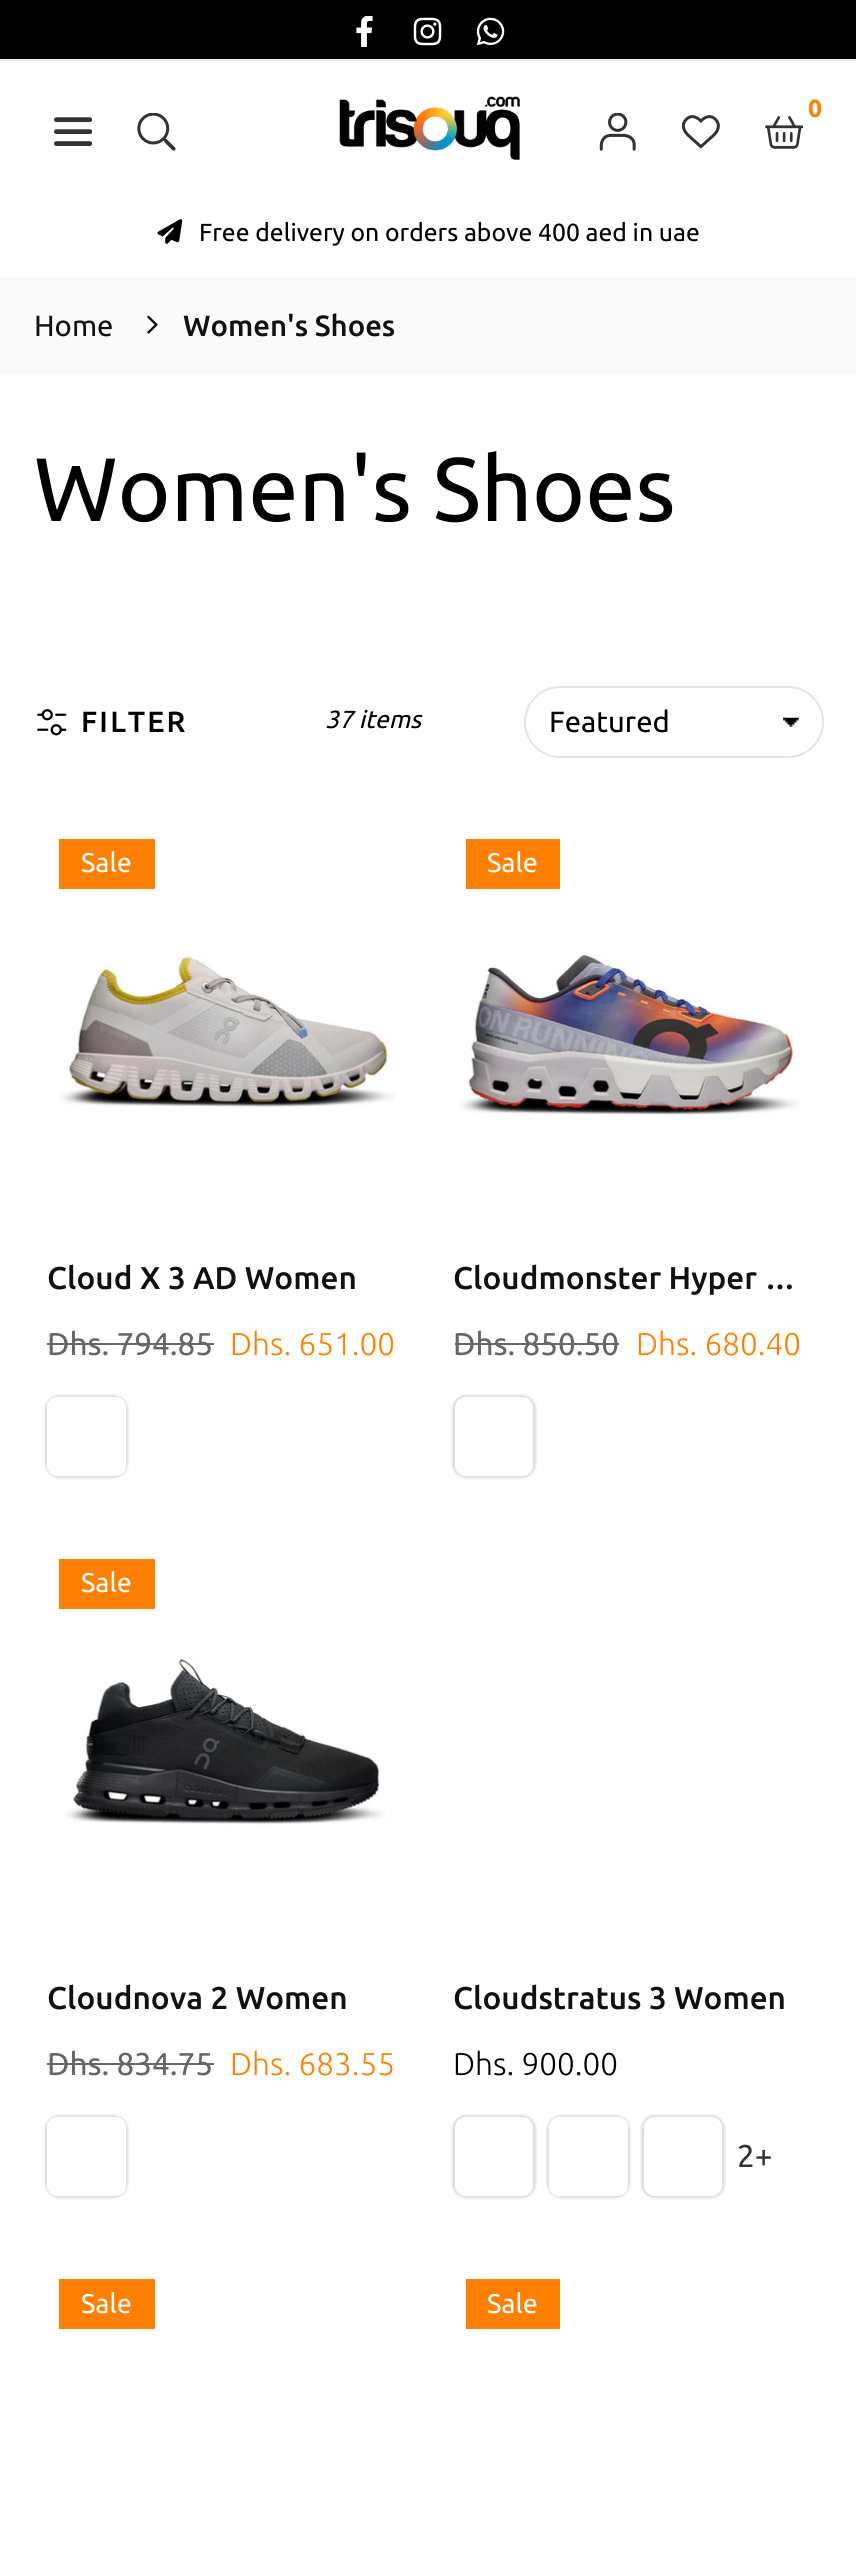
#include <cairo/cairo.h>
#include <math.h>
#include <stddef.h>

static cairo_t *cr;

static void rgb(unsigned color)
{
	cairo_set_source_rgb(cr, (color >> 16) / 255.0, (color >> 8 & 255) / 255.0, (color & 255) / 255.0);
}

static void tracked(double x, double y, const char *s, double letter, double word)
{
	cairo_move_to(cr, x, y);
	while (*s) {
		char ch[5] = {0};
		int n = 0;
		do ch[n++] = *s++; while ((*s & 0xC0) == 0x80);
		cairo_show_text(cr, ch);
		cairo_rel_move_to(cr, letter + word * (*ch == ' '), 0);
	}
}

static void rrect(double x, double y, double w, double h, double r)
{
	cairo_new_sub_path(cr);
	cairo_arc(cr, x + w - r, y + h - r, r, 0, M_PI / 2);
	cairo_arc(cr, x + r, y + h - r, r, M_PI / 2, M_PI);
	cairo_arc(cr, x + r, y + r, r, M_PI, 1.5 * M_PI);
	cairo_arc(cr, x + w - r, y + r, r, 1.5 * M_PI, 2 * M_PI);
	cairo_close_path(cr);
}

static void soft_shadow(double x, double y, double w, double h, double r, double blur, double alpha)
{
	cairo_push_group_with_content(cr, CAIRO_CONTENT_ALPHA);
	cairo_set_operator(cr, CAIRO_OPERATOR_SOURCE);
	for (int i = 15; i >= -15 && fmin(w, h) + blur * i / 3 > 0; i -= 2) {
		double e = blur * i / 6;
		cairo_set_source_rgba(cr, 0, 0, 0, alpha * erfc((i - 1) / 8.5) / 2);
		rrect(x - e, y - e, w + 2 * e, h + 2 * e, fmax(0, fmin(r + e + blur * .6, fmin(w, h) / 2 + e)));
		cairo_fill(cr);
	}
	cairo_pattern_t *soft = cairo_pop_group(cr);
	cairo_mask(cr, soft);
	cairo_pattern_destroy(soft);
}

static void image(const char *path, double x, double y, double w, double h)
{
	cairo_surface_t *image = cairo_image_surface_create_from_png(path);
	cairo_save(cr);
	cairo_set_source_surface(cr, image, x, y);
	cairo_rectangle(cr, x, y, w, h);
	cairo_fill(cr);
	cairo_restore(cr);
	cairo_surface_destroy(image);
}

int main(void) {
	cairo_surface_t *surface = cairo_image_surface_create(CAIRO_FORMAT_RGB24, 856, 2556);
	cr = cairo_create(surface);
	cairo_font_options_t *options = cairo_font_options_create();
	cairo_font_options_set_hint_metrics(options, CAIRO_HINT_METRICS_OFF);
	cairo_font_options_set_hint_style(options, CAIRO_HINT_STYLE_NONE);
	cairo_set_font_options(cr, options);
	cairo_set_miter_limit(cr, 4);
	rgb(0xffffff);
	cairo_paint(cr);
	rgb(0x000000);
	cairo_rectangle(cr, 0, 0, 856, 59);
	cairo_fill(cr);
	rgb(0xeeeeee);
	cairo_rectangle(cr, 0, 59, 856, 2);
	cairo_fill(cr);
	image("img/1.png", 356, 16, 17, 31);
	image("img/2.png", 413, 17, 29, 29);
	image("img/3.png", 476, 17, 29, 29);
	image("img/4.png", 339, 96, 181, 64);
	image("img/5.png", 765, 116, 38, 33);
	image("img/6.png", 599, 113, 37, 38);
	image("img/7.png", 682, 115, 38, 34);
	image("img/8.png", 54, 117, 38, 29);
	image("img/9.png", 137, 113, 39, 38);
	image("img/10.png", 157, 219, 26, 25);
	rgb(0xfafafa);
	cairo_rectangle(cr, 0, 277, 856, 97);
	cairo_fill(cr);
	image("img/11.png", 147, 315, 11, 19);
	image("img/12.png", 37, 709, 30, 27);
	image("img/13.png", 783, 717, 16, 10);
	rrect(525, 687, 298, 70, 35);
	rgb(0xe4e4e4);
	cairo_stroke(cr);
	rgb(0xff8000);
	cairo_rectangle(cr, 59, 839, 96, 50);
	cairo_fill(cr);
	image("img/14.png", 59, 955, 336, 155);
	rgb(0x666666);
	cairo_rectangle(cr, 47, 1343, 167, 2);
	cairo_fill(cr);
	cairo_save(cr);
	cairo_set_fill_rule(cr, CAIRO_FILL_RULE_EVEN_ODD);
	cairo_new_path(cr);
	cairo_move_to(cr, 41, 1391);
	cairo_line_to(cr, 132, 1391);
	cairo_line_to(cr, 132, 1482);
	cairo_line_to(cr, 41, 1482);
	cairo_close_path(cr);
	cairo_move_to(cr, 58, 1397);
	cairo_line_to(cr, 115, 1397);
	cairo_curve_to(cr, 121, 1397, 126, 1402, 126, 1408);
	cairo_line_to(cr, 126, 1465);
	cairo_curve_to(cr, 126, 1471, 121, 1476, 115, 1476);
	cairo_line_to(cr, 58, 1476);
	cairo_curve_to(cr, 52, 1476, 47, 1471, 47, 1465);
	cairo_line_to(cr, 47, 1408);
	cairo_curve_to(cr, 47, 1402, 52, 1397, 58, 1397);
	cairo_close_path(cr);
	cairo_clip(cr);
	rgb(0xdddddd);
	soft_shadow(45, 1395, 83, 83, 14, 1, 1);
	cairo_restore(cr);
	rrect(49.5, 1399.5, 74, 74, 8.5);
	rgb(0xffffff);
	cairo_set_line_width(cr, 5);
	cairo_stroke(cr);
	rgb(0xff8000);
	cairo_rectangle(cr, 466, 839, 94, 50);
	cairo_fill(cr);
	image("img/15.png", 459, 955, 341, 160);
	rgb(0x666666);
	cairo_rectangle(cr, 455, 1343, 164, 2);
	cairo_fill(cr);
	cairo_save(cr);
	cairo_set_fill_rule(cr, CAIRO_FILL_RULE_EVEN_ODD);
	cairo_new_path(cr);
	cairo_move_to(cr, 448, 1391);
	cairo_line_to(cr, 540, 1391);
	cairo_line_to(cr, 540, 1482);
	cairo_line_to(cr, 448, 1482);
	cairo_close_path(cr);
	cairo_move_to(cr, 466, 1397);
	cairo_line_to(cr, 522, 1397);
	cairo_curve_to(cr, 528, 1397, 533, 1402, 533, 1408);
	cairo_line_to(cr, 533, 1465);
	cairo_curve_to(cr, 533, 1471, 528, 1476, 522, 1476);
	cairo_line_to(cr, 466, 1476);
	cairo_curve_to(cr, 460, 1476, 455, 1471, 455, 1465);
	cairo_line_to(cr, 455, 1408);
	cairo_curve_to(cr, 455, 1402, 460, 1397, 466, 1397);
	cairo_close_path(cr);
	cairo_clip(cr);
	rgb(0xdddddd);
	soft_shadow(452, 1395, 84, 83, 14, 1, 1);
	cairo_restore(cr);
	rrect(457.5, 1399.5, 73, 74, 8.5);
	rgb(0xffffff);
	cairo_stroke(cr);
	rgb(0xff8000);
	cairo_rectangle(cr, 59, 1559, 96, 50);
	cairo_fill(cr);
	image("img/16.png", 64, 1659, 323, 166);
	rgb(0x666666);
	cairo_rectangle(cr, 47, 2063, 167, 2);
	cairo_fill(cr);
	cairo_save(cr);
	cairo_set_fill_rule(cr, CAIRO_FILL_RULE_EVEN_ODD);
	cairo_new_path(cr);
	cairo_move_to(cr, 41, 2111);
	cairo_line_to(cr, 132, 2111);
	cairo_line_to(cr, 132, 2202);
	cairo_line_to(cr, 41, 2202);
	cairo_close_path(cr);
	cairo_move_to(cr, 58, 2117);
	cairo_line_to(cr, 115, 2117);
	cairo_curve_to(cr, 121, 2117, 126, 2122, 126, 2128);
	cairo_line_to(cr, 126, 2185);
	cairo_curve_to(cr, 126, 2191, 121, 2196, 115, 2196);
	cairo_line_to(cr, 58, 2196);
	cairo_curve_to(cr, 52, 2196, 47, 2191, 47, 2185);
	cairo_line_to(cr, 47, 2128);
	cairo_curve_to(cr, 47, 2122, 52, 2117, 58, 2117);
	cairo_close_path(cr);
	cairo_clip(cr);
	rgb(0xdddddd);
	soft_shadow(45, 2115, 83, 83, 14, 1, 1);
	cairo_restore(cr);
	rrect(49.5, 2119.5, 74, 74, 8.5);
	rgb(0xffffff);
	cairo_stroke(cr);
	cairo_save(cr);
	cairo_set_fill_rule(cr, CAIRO_FILL_RULE_EVEN_ODD);
	cairo_new_path(cr);
	cairo_move_to(cr, 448, 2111);
	cairo_line_to(cr, 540, 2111);
	cairo_line_to(cr, 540, 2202);
	cairo_line_to(cr, 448, 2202);
	cairo_close_path(cr);
	cairo_move_to(cr, 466, 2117);
	cairo_line_to(cr, 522, 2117);
	cairo_curve_to(cr, 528, 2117, 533, 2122, 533, 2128);
	cairo_line_to(cr, 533, 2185);
	cairo_curve_to(cr, 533, 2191, 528, 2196, 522, 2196);
	cairo_line_to(cr, 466, 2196);
	cairo_curve_to(cr, 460, 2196, 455, 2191, 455, 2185);
	cairo_line_to(cr, 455, 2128);
	cairo_curve_to(cr, 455, 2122, 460, 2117, 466, 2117);
	cairo_close_path(cr);
	cairo_clip(cr);
	rgb(0xdddddd);
	soft_shadow(452, 2115, 84, 83, 14, 1, 1);
	cairo_restore(cr);
	rrect(457.5, 2119.5, 73, 74, 8.5);
	cairo_stroke(cr);
	cairo_save(cr);
	cairo_set_fill_rule(cr, CAIRO_FILL_RULE_EVEN_ODD);
	cairo_new_path(cr);
	cairo_move_to(cr, 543, 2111);
	cairo_line_to(cr, 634, 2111);
	cairo_line_to(cr, 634, 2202);
	cairo_line_to(cr, 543, 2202);
	cairo_close_path(cr);
	cairo_move_to(cr, 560, 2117);
	cairo_line_to(cr, 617, 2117);
	cairo_curve_to(cr, 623, 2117, 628, 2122, 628, 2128);
	cairo_line_to(cr, 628, 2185);
	cairo_curve_to(cr, 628, 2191, 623, 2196, 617, 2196);
	cairo_line_to(cr, 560, 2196);
	cairo_curve_to(cr, 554, 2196, 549, 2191, 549, 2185);
	cairo_line_to(cr, 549, 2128);
	cairo_curve_to(cr, 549, 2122, 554, 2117, 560, 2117);
	cairo_close_path(cr);
	cairo_clip(cr);
	rgb(0xdddddd);
	soft_shadow(547, 2115, 83, 83, 14, 1, 1);
	cairo_restore(cr);
	rrect(551.5, 2119.5, 74, 74, 8.5);
	cairo_stroke(cr);
	cairo_save(cr);
	cairo_set_fill_rule(cr, CAIRO_FILL_RULE_EVEN_ODD);
	cairo_new_path(cr);
	cairo_move_to(cr, 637, 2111);
	cairo_line_to(cr, 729, 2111);
	cairo_line_to(cr, 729, 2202);
	cairo_line_to(cr, 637, 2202);
	cairo_close_path(cr);
	cairo_move_to(cr, 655, 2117);
	cairo_line_to(cr, 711, 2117);
	cairo_curve_to(cr, 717, 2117, 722, 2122, 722, 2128);
	cairo_line_to(cr, 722, 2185);
	cairo_curve_to(cr, 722, 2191, 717, 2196, 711, 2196);
	cairo_line_to(cr, 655, 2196);
	cairo_curve_to(cr, 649, 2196, 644, 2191, 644, 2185);
	cairo_line_to(cr, 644, 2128);
	cairo_curve_to(cr, 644, 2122, 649, 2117, 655, 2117);
	cairo_close_path(cr);
	cairo_clip(cr);
	rgb(0xdddddd);
	soft_shadow(641, 2115, 84, 83, 14, 1, 1);
	cairo_restore(cr);
	rrect(646.5, 2119.5, 73, 74, 8.5);
	cairo_stroke(cr);
	rgb(0xff8000);
	cairo_rectangle(cr, 59, 2279, 96, 50);
	cairo_fill(cr);
	cairo_rectangle(cr, 466, 2279, 94, 50);
	cairo_fill(cr);
	cairo_select_font_face(cr, "Ubuntu", CAIRO_FONT_SLANT_NORMAL, CAIRO_FONT_WEIGHT_BOLD);
	cairo_set_font_size(cr, 24.75);
	cairo_move_to(cr, 808, 117);
	cairo_show_text(cr, "0");
	cairo_select_font_face(cr, "Ubuntu", CAIRO_FONT_SLANT_NORMAL, CAIRO_FONT_WEIGHT_NORMAL);
	rgb(0x000000);
	cairo_move_to(cr, 199, 241);
	cairo_show_text(cr, "Free delivery on orders above 400 aed in uae");
	cairo_set_font_size(cr, 29.25);
	rgb(0x111111);
	cairo_move_to(cr, 34, 336);
	cairo_show_text(cr, "Home");
	cairo_select_font_face(cr, "Ubuntu Medium", CAIRO_FONT_SLANT_NORMAL, CAIRO_FONT_WEIGHT_NORMAL);
	cairo_move_to(cr, 183, 336);
	cairo_show_text(cr, "Women's Shoes");
	cairo_select_font_face(cr, "Ubuntu", CAIRO_FONT_SLANT_NORMAL, CAIRO_FONT_WEIGHT_NORMAL);
	cairo_set_font_size(cr, 90);
	rgb(0x000000);
	cairo_move_to(cr, 34, 521);
	cairo_show_text(cr, "Women's Shoes");
	cairo_select_font_face(cr, "Ubuntu Medium", CAIRO_FONT_SLANT_NORMAL, CAIRO_FONT_WEIGHT_NORMAL);
	cairo_set_font_size(cr, 29.25);
	tracked(81, 732, "FILTER", 2.25, 0);
	cairo_select_font_face(cr, "Ubuntu", CAIRO_FONT_SLANT_ITALIC, CAIRO_FONT_WEIGHT_NORMAL);
	cairo_set_font_size(cr, 24.75);
	cairo_move_to(cr, 325, 728);
	cairo_show_text(cr, "37 items");
	cairo_select_font_face(cr, "Ubuntu", CAIRO_FONT_SLANT_NORMAL, CAIRO_FONT_WEIGHT_NORMAL);
	cairo_set_font_size(cr, 29.25);
	cairo_move_to(cr, 549, 732);
	cairo_show_text(cr, "Featured");
	cairo_set_font_size(cr, 27);
	rgb(0xffffff);
	cairo_move_to(cr, 81, 872);
	cairo_show_text(cr, "Sale");
	cairo_select_font_face(cr, "Ubuntu Medium", CAIRO_FONT_SLANT_NORMAL, CAIRO_FONT_WEIGHT_NORMAL);
	cairo_set_font_size(cr, 31.5);
	rgb(0x111111);
	cairo_move_to(cr, 47, 1289);
	cairo_show_text(cr, "Cloud X 3 AD Women");
	cairo_select_font_face(cr, "Ubuntu", CAIRO_FONT_SLANT_NORMAL, CAIRO_FONT_WEIGHT_NORMAL);
	rgb(0x666666);
	cairo_move_to(cr, 47, 1355);
	cairo_show_text(cr, "Dhs. 794.85");
	cairo_select_font_face(cr, "Ubuntu Light", CAIRO_FONT_SLANT_NORMAL, CAIRO_FONT_WEIGHT_NORMAL);
	rgb(0xff8000);
	cairo_move_to(cr, 230, 1355);
	cairo_show_text(cr, "Dhs. 651.00");
	cairo_select_font_face(cr, "Ubuntu", CAIRO_FONT_SLANT_NORMAL, CAIRO_FONT_WEIGHT_NORMAL);
	cairo_set_font_size(cr, 27);
	rgb(0xffffff);
	cairo_move_to(cr, 487, 872);
	cairo_show_text(cr, "Sale");
	cairo_select_font_face(cr, "Ubuntu Medium", CAIRO_FONT_SLANT_NORMAL, CAIRO_FONT_WEIGHT_NORMAL);
	cairo_set_font_size(cr, 31.5);
	rgb(0x111111);
	cairo_move_to(cr, 453, 1289);
	cairo_show_text(cr, "Cloudmonster Hyper …");
	cairo_select_font_face(cr, "Ubuntu", CAIRO_FONT_SLANT_NORMAL, CAIRO_FONT_WEIGHT_NORMAL);
	rgb(0x666666);
	cairo_move_to(cr, 453, 1355);
	cairo_show_text(cr, "Dhs. 850.50");
	cairo_select_font_face(cr, "Ubuntu Light", CAIRO_FONT_SLANT_NORMAL, CAIRO_FONT_WEIGHT_NORMAL);
	rgb(0xff8000);
	cairo_move_to(cr, 636, 1355);
	cairo_show_text(cr, "Dhs. 680.40");
	cairo_select_font_face(cr, "Ubuntu", CAIRO_FONT_SLANT_NORMAL, CAIRO_FONT_WEIGHT_NORMAL);
	cairo_set_font_size(cr, 27);
	rgb(0xffffff);
	cairo_move_to(cr, 81, 1592);
	cairo_show_text(cr, "Sale");
	cairo_select_font_face(cr, "Ubuntu Medium", CAIRO_FONT_SLANT_NORMAL, CAIRO_FONT_WEIGHT_NORMAL);
	cairo_set_font_size(cr, 31.5);
	rgb(0x111111);
	cairo_move_to(cr, 47, 2009);
	cairo_show_text(cr, "Cloudnova 2 Women");
	cairo_select_font_face(cr, "Ubuntu", CAIRO_FONT_SLANT_NORMAL, CAIRO_FONT_WEIGHT_NORMAL);
	rgb(0x666666);
	cairo_move_to(cr, 47, 2075);
	cairo_show_text(cr, "Dhs. 834.75");
	cairo_select_font_face(cr, "Ubuntu Light", CAIRO_FONT_SLANT_NORMAL, CAIRO_FONT_WEIGHT_NORMAL);
	rgb(0xff8000);
	cairo_move_to(cr, 230, 2075);
	cairo_show_text(cr, "Dhs. 683.55");
	cairo_select_font_face(cr, "Ubuntu Medium", CAIRO_FONT_SLANT_NORMAL, CAIRO_FONT_WEIGHT_NORMAL);
	rgb(0x111111);
	cairo_move_to(cr, 453, 2009);
	cairo_show_text(cr, "Cloudstratus 3 Women");
	cairo_select_font_face(cr, "Ubuntu Light", CAIRO_FONT_SLANT_NORMAL, CAIRO_FONT_WEIGHT_NORMAL);
	rgb(0x000000);
	cairo_move_to(cr, 453, 2075);
	cairo_show_text(cr, "Dhs. 900.00");
	cairo_select_font_face(cr, "Ubuntu", CAIRO_FONT_SLANT_NORMAL, CAIRO_FONT_WEIGHT_NORMAL);
	rgb(0x333333);
	cairo_move_to(cr, 737, 2167);
	cairo_show_text(cr, "2+");
	cairo_set_font_size(cr, 27);
	rgb(0xffffff);
	cairo_move_to(cr, 81, 2313);
	cairo_show_text(cr, "Sale");
	cairo_move_to(cr, 487, 2313);
	cairo_show_text(cr, "Sale");
	cairo_surface_write_to_png(surface, "page.png");
	cairo_font_options_destroy(options);
	cairo_destroy(cr);
	cairo_surface_destroy(surface);
	return 0;
}
